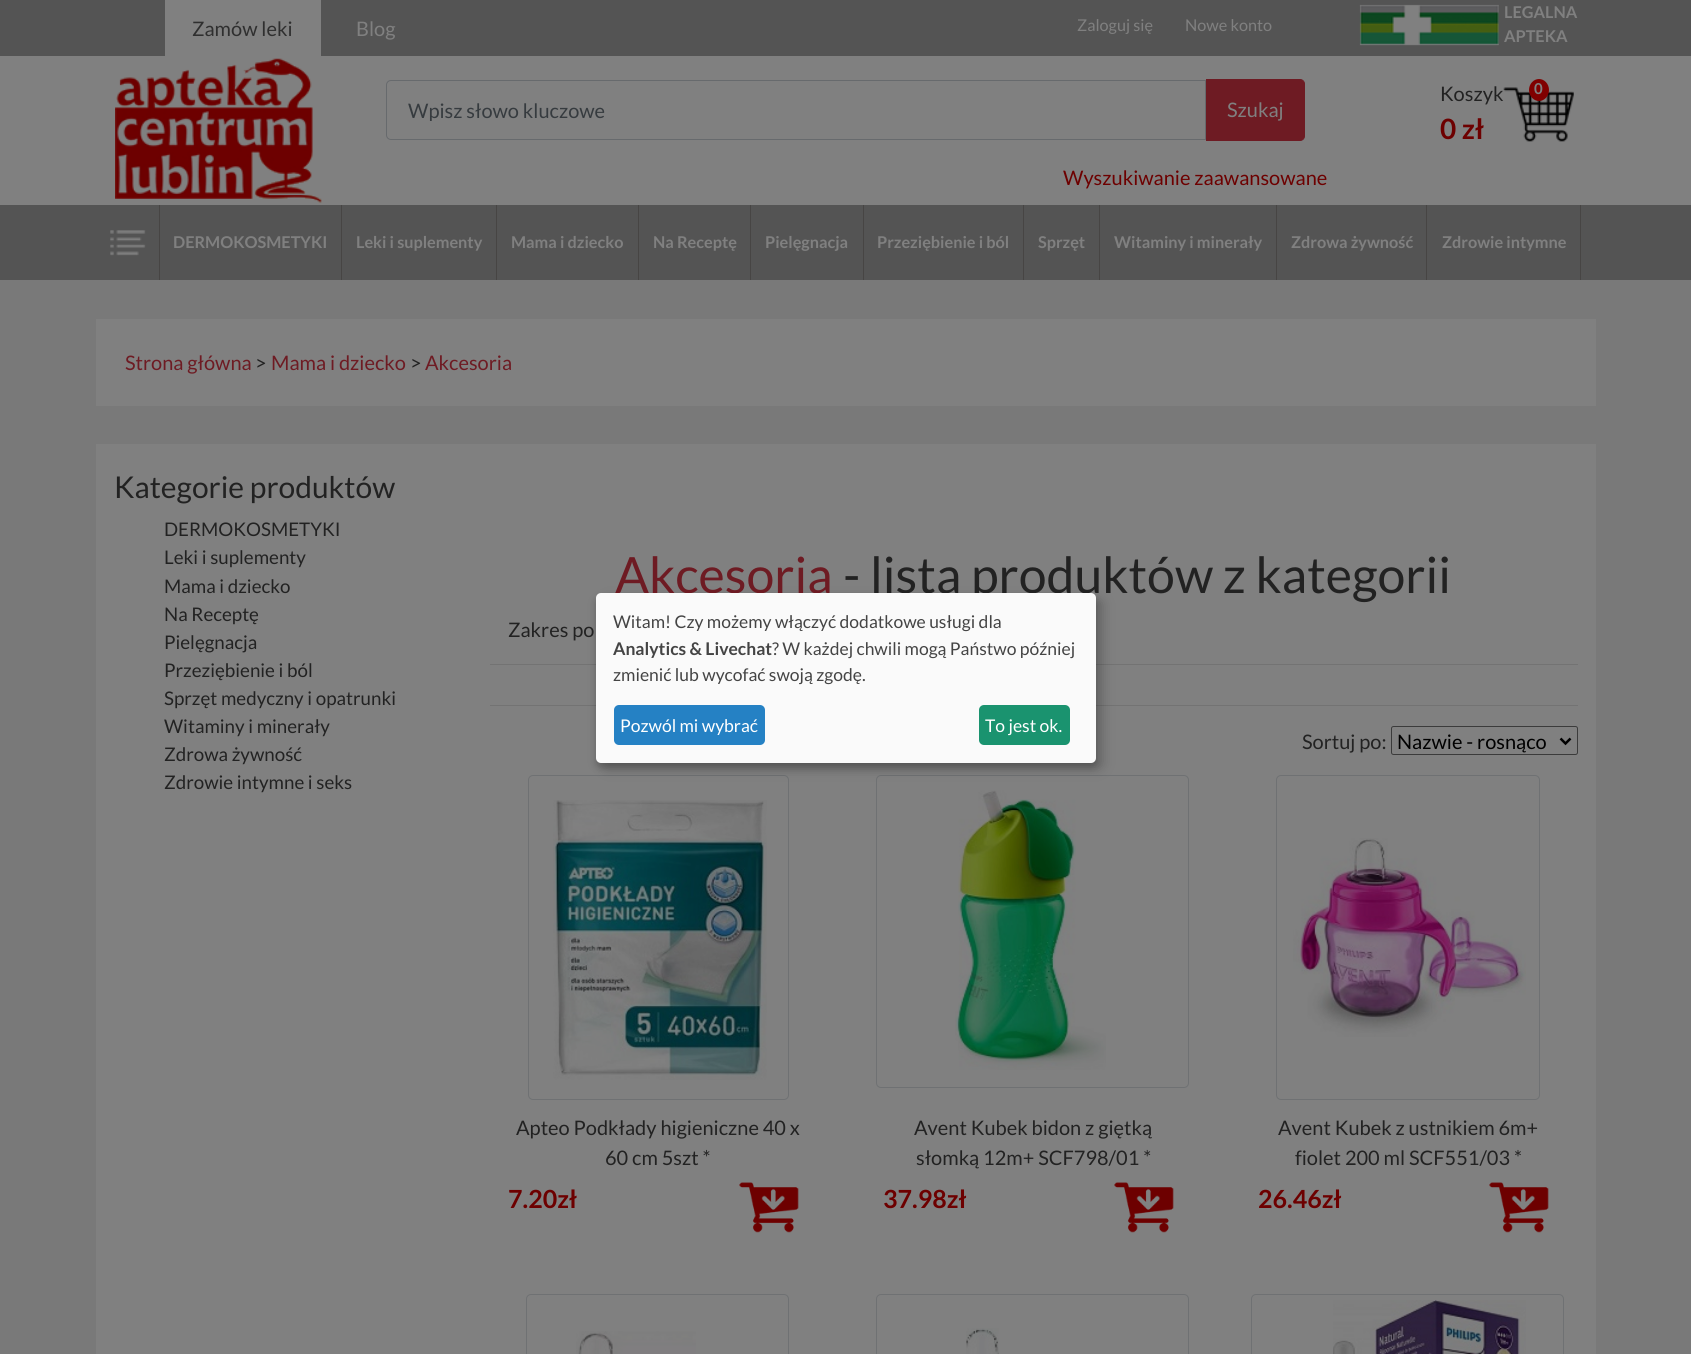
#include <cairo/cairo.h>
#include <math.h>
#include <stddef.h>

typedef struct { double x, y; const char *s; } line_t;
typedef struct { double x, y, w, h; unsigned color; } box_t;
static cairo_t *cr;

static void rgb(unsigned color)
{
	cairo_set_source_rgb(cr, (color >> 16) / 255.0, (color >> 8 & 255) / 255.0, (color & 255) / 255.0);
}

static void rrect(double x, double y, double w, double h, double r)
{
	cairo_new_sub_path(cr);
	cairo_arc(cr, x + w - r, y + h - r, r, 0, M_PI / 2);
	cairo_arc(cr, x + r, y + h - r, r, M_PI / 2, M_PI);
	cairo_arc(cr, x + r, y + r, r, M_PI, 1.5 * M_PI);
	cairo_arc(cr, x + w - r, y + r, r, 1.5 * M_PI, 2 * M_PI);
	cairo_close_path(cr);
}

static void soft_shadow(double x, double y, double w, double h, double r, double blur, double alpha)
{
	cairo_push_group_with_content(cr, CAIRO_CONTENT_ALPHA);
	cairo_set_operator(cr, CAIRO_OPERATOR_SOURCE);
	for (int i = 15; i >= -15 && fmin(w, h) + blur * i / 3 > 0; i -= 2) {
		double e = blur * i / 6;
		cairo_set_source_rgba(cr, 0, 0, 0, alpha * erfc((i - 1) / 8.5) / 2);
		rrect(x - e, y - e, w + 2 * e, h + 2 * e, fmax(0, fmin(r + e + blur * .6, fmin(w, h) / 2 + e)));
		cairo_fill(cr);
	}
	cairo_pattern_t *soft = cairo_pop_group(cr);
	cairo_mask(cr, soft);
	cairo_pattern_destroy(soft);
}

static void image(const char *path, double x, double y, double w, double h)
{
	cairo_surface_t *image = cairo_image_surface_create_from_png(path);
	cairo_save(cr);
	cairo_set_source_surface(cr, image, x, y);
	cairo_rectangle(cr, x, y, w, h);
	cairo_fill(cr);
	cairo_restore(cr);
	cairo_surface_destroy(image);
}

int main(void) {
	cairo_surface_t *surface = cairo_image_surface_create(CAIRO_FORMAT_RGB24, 1691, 1354);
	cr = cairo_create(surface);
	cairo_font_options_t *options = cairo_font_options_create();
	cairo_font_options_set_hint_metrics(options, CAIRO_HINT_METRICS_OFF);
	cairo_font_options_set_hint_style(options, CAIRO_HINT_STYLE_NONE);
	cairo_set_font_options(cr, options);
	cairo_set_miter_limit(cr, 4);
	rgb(0x797979);
	cairo_paint(cr);
	rgb(0x545454);
	cairo_rectangle(cr, 0, 0, 1691, 56);
	cairo_fill(cr);
	rgb(0x808080);
	cairo_rectangle(cr, 165, 0, 156, 56);
	cairo_fill(cr);
	image("img/1.png", 1359, 4, 140, 42);
	cairo_rectangle(cr, 0, 56, 1691, 149);
	cairo_fill(cr);
	image("img/2.png", 115, 58, 207, 145);
	cairo_new_path(cr);
	cairo_move_to(cr, 391, 80.5);
	cairo_line_to(cr, 1205.5, 80.5);
	cairo_line_to(cr, 1205.5, 139.5);
	cairo_line_to(cr, 391, 139.5);
	cairo_curve_to(cr, 388.5, 139.5, 386.5, 137.5, 386.5, 135);
	cairo_line_to(cr, 386.5, 85);
	cairo_curve_to(cr, 386.5, 82.5, 388.5, 80.5, 391, 80.5);
	cairo_close_path(cr);
	rgb(0x676a6d);
	cairo_set_line_width(cr, 1);
	cairo_stroke(cr);
	rgb(0x6e1b23);
	cairo_new_path(cr);
	cairo_move_to(cr, 1206.5, 79.5);
	cairo_line_to(cr, 1300, 79.5);
	cairo_curve_to(cr, 1302.5, 79.5, 1304.5, 81.5, 1304.5, 84);
	cairo_line_to(cr, 1304.5, 136);
	cairo_curve_to(cr, 1304.5, 138.5, 1302.5, 140.5, 1300, 140.5);
	cairo_line_to(cr, 1206.5, 140.5);
	cairo_close_path(cr);
	cairo_fill_preserve(cr);
	cairo_stroke(cr);
	rgb(0x545454);
	cairo_rectangle(cr, 0, 205, 1691, 75);
	cairo_fill(cr);
	rgb(0x474544);
	cairo_rectangle(cr, 159, 205, 1, 75);
	cairo_fill(cr);
	image("img/4.png", 110, 230, 36, 26);
	{
		static const box_t items[] = {
			{341, 205, 1, 75, 0x474544},
			{496, 205, 1, 75, 0x474544},
			{638, 205, 1, 75, 0x474544},
			{750, 205, 1, 75, 0x474544},
			{863, 205, 1, 75, 0x474544},
			{1023, 205, 1, 75, 0x474544},
			{1099, 205, 1, 75, 0x474544},
			{1276, 205, 1, 75, 0x474544},
			{1426, 205, 1, 75, 0x474544},
			{1580, 205, 1, 75, 0x474544},
			{96, 319, 1500, 87, 0x808080},
			{96, 444, 1500, 910, 0x808080},
			{490, 664, 1088, 1, 0x737373},
			{490, 705, 1088, 1, 0x737373},
		};
		for (size_t i = 0; i < sizeof items / sizeof *items; i++) {
			rgb(items[i].color);
			cairo_rectangle(cr, items[i].x, items[i].y, items[i].w, items[i].h);
			cairo_fill(cr);
		}
	}
	rrect(1391.5, 726.5, 186, 28, 2);
	rgb(0x3b3b3b);
	cairo_stroke(cr);
	cairo_new_path(cr);
	cairo_move_to(cr, 1560.5, 738.5);
	cairo_line_to(cr, 1565.5, 743.5);
	cairo_line_to(cr, 1570.5, 738.5);
	rgb(0x000000);
	cairo_set_line_width(cr, 2.5);
	cairo_stroke(cr);
	rrect(528.5, 775.5, 260, 324, 4.5);
	rgb(0x6f7173);
	cairo_set_line_width(cr, 1);
	cairo_stroke(cr);
	image("img/5.png", 553, 800, 214, 280);
	image("img/6.png", 739, 1182, 60, 51);
	rrect(876.5, 775.5, 312, 312, 4.5);
	cairo_stroke(cr);
	image("img/7.png", 955, 790, 151, 280);
	image("img/8.png", 1114, 1182, 60, 51);
	rrect(1276.5, 775.5, 263, 324, 4.5);
	cairo_stroke(cr);
	image("img/9.png", 1293, 838, 233, 199);
	image("img/8.png", 1489, 1182, 60, 51);
	rrect(526.5, 1294.5, 262, 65, 4.5);
	cairo_stroke(cr);
	image("img/10.png", 576, 1331, 120, 23);
	rrect(876.5, 1294.5, 312, 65, 4.5);
	cairo_stroke(cr);
	image("img/11.png", 966, 1328, 33, 26);
	rrect(1251.5, 1294.5, 312, 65, 4.5);
	cairo_stroke(cr);
	image("img/12.png", 1333, 1300, 193, 54);
	rgb(0x000000);
	soft_shadow(603, 599, 500, 170, 5, 6, 0.19);
	soft_shadow(596, 598, 500, 170, 5, 4, 0.2);
	cairo_select_font_face(cr, "Lato", CAIRO_FONT_SLANT_NORMAL, CAIRO_FONT_WEIGHT_NORMAL);
	cairo_set_font_size(cr, 20);
	rgb(0x2f2f2f);
	cairo_move_to(cr, 192, 36);
	cairo_show_text(cr, "Zamów leki");
	rgb(0x808080);
	cairo_move_to(cr, 356, 36);
	cairo_show_text(cr, "Blog");
	cairo_set_font_size(cr, 16.25);
	cairo_move_to(cr, 1077, 31);
	cairo_show_text(cr, "Zaloguj się");
	cairo_move_to(cr, 1185, 31);
	cairo_show_text(cr, "Nowe konto");
	cairo_select_font_face(cr, "Lato", CAIRO_FONT_SLANT_NORMAL, CAIRO_FONT_WEIGHT_BOLD);
	cairo_move_to(cr, 1504, 18);
	cairo_show_text(cr, "LEGALNA");
	cairo_move_to(cr, 1504, 42);
	cairo_show_text(cr, "APTEKA");
	cairo_save(cr);
	cairo_rectangle(cr, 408, 98, 772, 23);
	cairo_clip(cr);
	cairo_select_font_face(cr, "Lato", CAIRO_FONT_SLANT_NORMAL, CAIRO_FONT_WEIGHT_NORMAL);
	cairo_set_font_size(cr, 20);
	rgb(0x363b3f);
	cairo_move_to(cr, 408, 118);
	cairo_show_text(cr, "Wpisz słowo kluczowe");
	cairo_restore(cr);
	cairo_select_font_face(cr, "Lato", CAIRO_FONT_SLANT_NORMAL, CAIRO_FONT_WEIGHT_NORMAL);
	cairo_set_font_size(cr, 20);
	cairo_move_to(cr, 1227, 117);
	cairo_show_text(cr, "Szukaj");
	rgb(0x6d0000);
	cairo_move_to(cr, 1063, 185);
	cairo_show_text(cr, "Wyszukiwanie zaawansowane");
	rgb(0x222222);
	cairo_move_to(cr, 1440, 101);
	cairo_show_text(cr, "Koszyk");
	cairo_select_font_face(cr, "Lato", CAIRO_FONT_SLANT_NORMAL, CAIRO_FONT_WEIGHT_BOLD);
	cairo_set_font_size(cr, 28);
	rgb(0x6d0000);
	cairo_move_to(cr, 1440, 139);
	cairo_show_text(cr, "0 zł");
	image("img/3.png", 1503, 87, 71, 55);
	rgb(0x800000);
	cairo_new_path(cr);
	cairo_move_to(cr, 1539, 79);
	cairo_curve_to(cr, 1544.5, 79, 1549, 84, 1549, 90);
	cairo_curve_to(cr, 1549, 96, 1544.5, 101, 1539, 101);
	cairo_curve_to(cr, 1533.5, 101, 1529, 96, 1529, 90);
	cairo_curve_to(cr, 1529, 84, 1533.5, 79, 1539, 79);
	cairo_close_path(cr);
	cairo_fill(cr);
	cairo_set_font_size(cr, 15);
	rgb(0x808080);
	cairo_move_to(cr, 1534, 94);
	cairo_show_text(cr, "0");
	cairo_set_font_size(cr, 16.25);
	{
		static const line_t items[] = {
			{173, 248, "DERMOKOSMETYKI"},
			{356, 248, "Leki i suplementy"},
			{511, 248, "Mama i dziecko"},
			{653, 248, "Na Receptę"},
			{765, 248, "Pielęgnacja"},
			{877, 248, "Przeziębienie i ból"},
			{1038, 248, "Sprzęt"},
			{1114, 248, "Witaminy i minerały"},
			{1291, 248, "Zdrowa żywność"},
			{1442, 248, "Zdrowie intymne"},
		};
		for (size_t i = 0; i < sizeof items / sizeof *items; i++) {
			cairo_move_to(cr, items[i].x, items[i].y);
			cairo_show_text(cr, items[i].s);
		}
	}
	cairo_select_font_face(cr, "Lato", CAIRO_FONT_SLANT_NORMAL, CAIRO_FONT_WEIGHT_NORMAL);
	cairo_set_font_size(cr, 20);
	rgb(0x6e1b23);
	cairo_move_to(cr, 125, 370);
	cairo_show_text(cr, "Strona główna");
	rgb(0x222222);
	cairo_move_to(cr, 255, 370);
	cairo_show_text(cr, ">");
	rgb(0x6e1b23);
	cairo_move_to(cr, 271, 370);
	cairo_show_text(cr, "Mama i dziecko");
	rgb(0x222222);
	cairo_move_to(cr, 410, 370);
	cairo_show_text(cr, ">");
	rgb(0x6e1b23);
	cairo_move_to(cr, 425, 370);
	cairo_show_text(cr, "Akcesoria");
	cairo_set_font_size(cr, 30);
	rgb(0x222222);
	cairo_move_to(cr, 114, 498);
	cairo_show_text(cr, "Kategorie produktów");
	cairo_set_font_size(cr, 18.75);
	{
		static const line_t items[] = {
			{164, 536, "DERMOKOSMETYKI"},
			{164, 564, "Leki i suplementy"},
			{164, 593, "Mama i dziecko"},
			{164, 621, "Na Receptę"},
			{164, 649, "Pielęgnacja"},
			{164, 677, "Przeziębienie i ból"},
			{164, 705, "Sprzęt medyczny i opatrunki"},
			{164, 733, "Witaminy i minerały"},
			{164, 761, "Zdrowa żywność"},
			{164, 789, "Zdrowie intymne i seks"},
		};
		for (size_t i = 0; i < sizeof items / sizeof *items; i++) {
			cairo_move_to(cr, items[i].x, items[i].y);
			cairo_show_text(cr, items[i].s);
		}
	}
	cairo_set_font_size(cr, 50);
	rgb(0x6e1b23);
	cairo_move_to(cr, 615, 593);
	cairo_show_text(cr, "Akcesoria");
	rgb(0x222222);
	cairo_move_to(cr, 843, 593);
	cairo_show_text(cr, "- lista produktów z kategorii");
	cairo_set_font_size(cr, 20);
	cairo_move_to(cr, 508, 637);
	cairo_show_text(cr, "Zakres po");
	cairo_move_to(cr, 1302, 749);
	cairo_show_text(cr, "Sortuj po:");
	rgb(0x000000);
	cairo_move_to(cr, 1397, 749);
	cairo_show_text(cr, "Nazwie - rosnąco");
	rgb(0x222222);
	cairo_move_to(cr, 516, 1135);
	cairo_show_text(cr, "Apteo Podkłady higieniczne 40 x");
	cairo_move_to(cr, 605, 1165);
	cairo_show_text(cr, "60 cm 5szt *");
	cairo_select_font_face(cr, "Lato", CAIRO_FONT_SLANT_NORMAL, CAIRO_FONT_WEIGHT_BOLD);
	cairo_set_font_size(cr, 25);
	rgb(0x6d0000);
	cairo_move_to(cr, 508, 1208);
	cairo_show_text(cr, "7.20zł");
	cairo_select_font_face(cr, "Lato", CAIRO_FONT_SLANT_NORMAL, CAIRO_FONT_WEIGHT_NORMAL);
	cairo_set_font_size(cr, 20);
	rgb(0x222222);
	cairo_move_to(cr, 914, 1135);
	cairo_show_text(cr, "Avent Kubek bidon z giętką");
	cairo_move_to(cr, 916, 1165);
	cairo_show_text(cr, "słomką 12m+ SCF798/01 *");
	cairo_select_font_face(cr, "Lato", CAIRO_FONT_SLANT_NORMAL, CAIRO_FONT_WEIGHT_BOLD);
	cairo_set_font_size(cr, 25);
	rgb(0x6d0000);
	cairo_move_to(cr, 883, 1208);
	cairo_show_text(cr, "37.98zł");
	cairo_select_font_face(cr, "Lato", CAIRO_FONT_SLANT_NORMAL, CAIRO_FONT_WEIGHT_NORMAL);
	cairo_set_font_size(cr, 20);
	rgb(0x222222);
	cairo_move_to(cr, 1278, 1135);
	cairo_show_text(cr, "Avent Kubek z ustnikiem 6m+");
	cairo_move_to(cr, 1295, 1165);
	cairo_show_text(cr, "fiolet 200 ml SCF551/03 *");
	cairo_select_font_face(cr, "Lato", CAIRO_FONT_SLANT_NORMAL, CAIRO_FONT_WEIGHT_BOLD);
	cairo_set_font_size(cr, 25);
	rgb(0x6d0000);
	cairo_move_to(cr, 1258, 1208);
	cairo_show_text(cr, "26.46zł");
	rgb(0xfafafa);
	rrect(596, 593, 500, 170, 5);
	cairo_fill(cr);
	cairo_select_font_face(cr, "Lato", CAIRO_FONT_SLANT_NORMAL, CAIRO_FONT_WEIGHT_NORMAL);
	cairo_set_font_size(cr, 17.5);
	rgb(0x444444);
	cairo_move_to(cr, 613, 628);
	cairo_show_text(cr, "Witam! Czy możemy włączyć dodatkowe usługi dla");
	cairo_select_font_face(cr, "Lato", CAIRO_FONT_SLANT_NORMAL, CAIRO_FONT_WEIGHT_BOLD);
	cairo_move_to(cr, 613, 655);
	cairo_show_text(cr, "Analytics & Livechat");
	cairo_select_font_face(cr, "Lato", CAIRO_FONT_SLANT_NORMAL, CAIRO_FONT_WEIGHT_NORMAL);
	cairo_move_to(cr, 772, 655);
	cairo_show_text(cr, "? W każdej chwili mogą Państwo później");
	cairo_move_to(cr, 613, 681);
	cairo_show_text(cr, "zmienić lub wycofać swoją zgodę.");
	rgb(0x2581c4);
	rrect(614, 705, 151, 40, 5);
	cairo_fill(cr);
	rgb(0xffffff);
	cairo_move_to(cr, 620, 732);
	cairo_show_text(cr, "Pozwól mi wybrać");
	rgb(0x1a936f);
	rrect(979, 705, 91, 40, 5);
	cairo_fill(cr);
	rgb(0xffffff);
	cairo_move_to(cr, 985, 732);
	cairo_show_text(cr, "To jest ok.");
	cairo_surface_write_to_png(surface, "page.png");
	cairo_font_options_destroy(options);
	cairo_destroy(cr);
	cairo_surface_destroy(surface);
	return 0;
}
